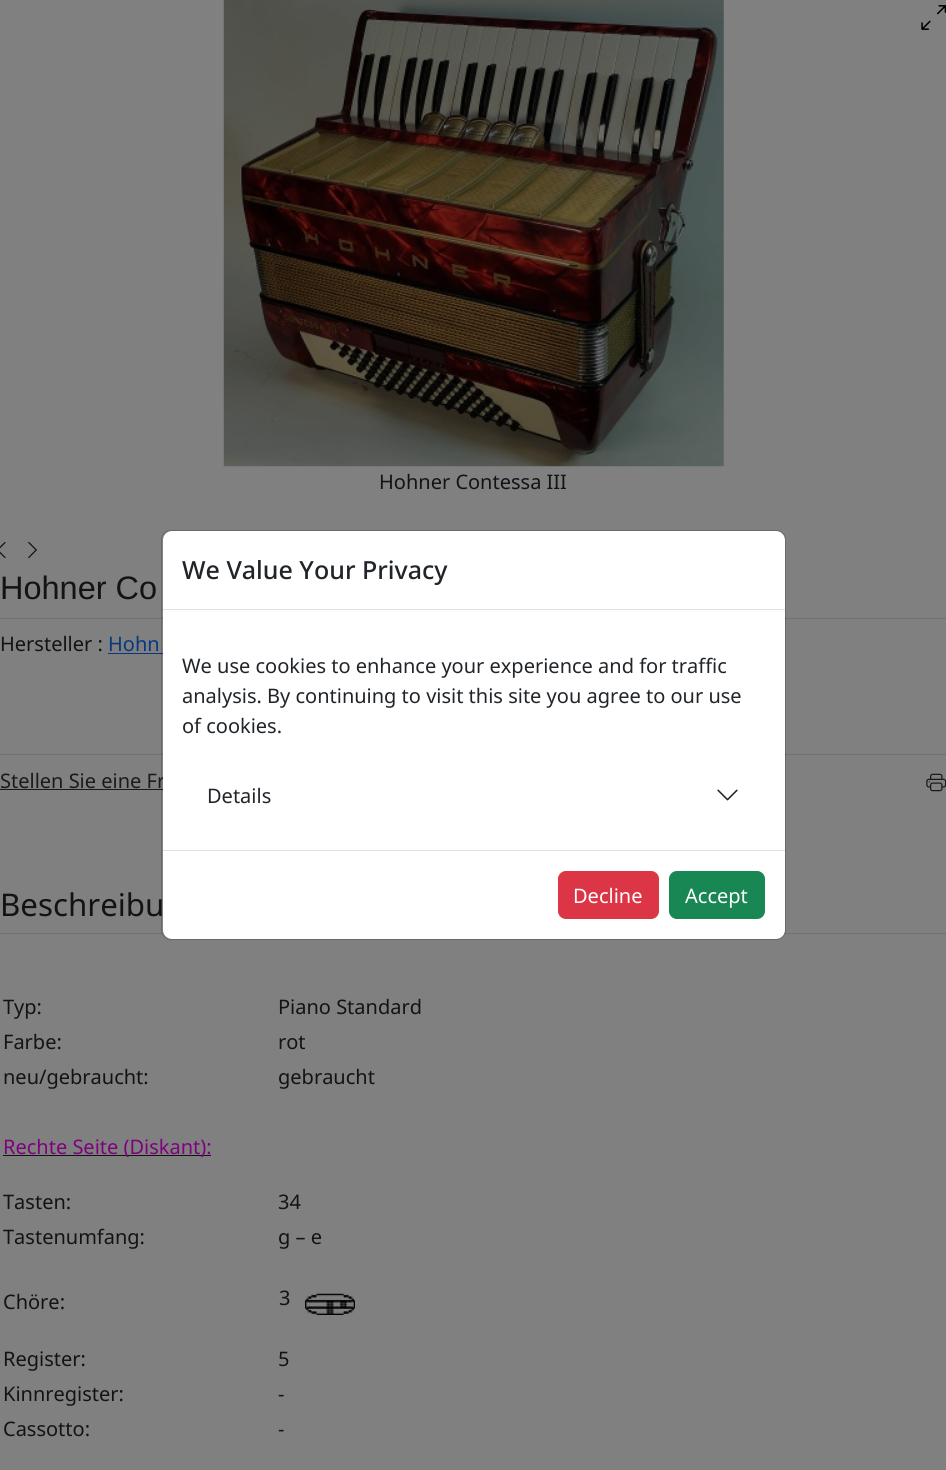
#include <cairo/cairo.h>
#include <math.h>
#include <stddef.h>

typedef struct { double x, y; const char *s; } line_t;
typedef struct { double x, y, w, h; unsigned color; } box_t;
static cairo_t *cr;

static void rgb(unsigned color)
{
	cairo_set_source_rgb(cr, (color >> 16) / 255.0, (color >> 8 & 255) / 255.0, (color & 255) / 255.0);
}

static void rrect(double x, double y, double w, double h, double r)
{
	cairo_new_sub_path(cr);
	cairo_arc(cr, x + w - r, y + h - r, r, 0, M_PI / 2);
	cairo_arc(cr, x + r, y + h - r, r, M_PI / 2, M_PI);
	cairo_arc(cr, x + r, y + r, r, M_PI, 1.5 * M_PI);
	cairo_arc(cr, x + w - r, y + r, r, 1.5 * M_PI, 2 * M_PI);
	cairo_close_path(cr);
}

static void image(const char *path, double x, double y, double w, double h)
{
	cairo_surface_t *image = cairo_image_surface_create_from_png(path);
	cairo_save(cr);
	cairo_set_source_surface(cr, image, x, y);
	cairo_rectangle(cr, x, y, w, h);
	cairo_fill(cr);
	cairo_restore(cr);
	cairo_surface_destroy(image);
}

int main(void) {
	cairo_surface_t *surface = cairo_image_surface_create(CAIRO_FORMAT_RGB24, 946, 1470);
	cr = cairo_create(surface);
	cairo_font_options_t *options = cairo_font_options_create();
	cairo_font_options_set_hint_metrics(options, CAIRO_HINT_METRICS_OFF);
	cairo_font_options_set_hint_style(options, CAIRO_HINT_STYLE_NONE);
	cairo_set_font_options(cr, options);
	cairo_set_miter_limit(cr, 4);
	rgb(0x808080);
	cairo_paint(cr);
	image("img/1.png", 223, 0, 501, 467);
	image("img/2.png", 921, 5, 25, 25);
	image("img/3.png", 0, 542, 6, 16);
	image("img/4.png", 28, 541, 9, 18);
	{
		static const box_t items[] = {
			{0, 618, 946, 1, 0x6f7173},
			{108, 653, 55, 1, 0x07377f},
			{0, 754, 946, 1, 0x6f7173},
			{0, 789, 163, 1, 0x1a1a1a},
		};
		for (size_t i = 0; i < sizeof items / sizeof *items; i++) {
			rgb(items[i].color);
			cairo_rectangle(cr, items[i].x, items[i].y, items[i].w, items[i].h);
			cairo_fill(cr);
		}
	}
	image("img/5.png", 926, 773, 20, 19);
	rgb(0x6f7173);
	cairo_rectangle(cr, 0, 933, 946, 1);
	cairo_fill(cr);
	rgb(0x111315);
	cairo_rectangle(cr, 3, 1155, 208, 1);
	cairo_fill(cr);
	image("img/6.png", 305, 1293, 50, 22);
	cairo_select_font_face(cr, "Noto Sans", CAIRO_FONT_SLANT_NORMAL, CAIRO_FONT_WEIGHT_NORMAL);
	cairo_set_font_size(cr, 20);
	cairo_move_to(cr, 379, 489);
	cairo_show_text(cr, "Hohner Contessa III");
	cairo_select_font_face(cr, "Liberation Sans", CAIRO_FONT_SLANT_NORMAL, CAIRO_FONT_WEIGHT_NORMAL);
	cairo_set_font_size(cr, 32.5);
	cairo_move_to(cr, 0, 599);
	cairo_show_text(cr, "Hohner Co");
	cairo_select_font_face(cr, "Noto Sans", CAIRO_FONT_SLANT_NORMAL, CAIRO_FONT_WEIGHT_NORMAL);
	cairo_set_font_size(cr, 20);
	cairo_move_to(cr, 0, 651);
	cairo_show_text(cr, "Hersteller :");
	rgb(0x07377f);
	cairo_move_to(cr, 108, 651);
	cairo_show_text(cr, "Hohn");
	rgb(0x1a1a1a);
	cairo_move_to(cr, 0, 788);
	cairo_show_text(cr, "Stellen Sie eine Fr");
	cairo_set_font_size(cr, 31.25);
	rgb(0x111315);
	cairo_move_to(cr, 0, 916);
	cairo_show_text(cr, "Beschreibu");
	cairo_set_font_size(cr, 20);
	{
		static const line_t items[] = {
			{3, 1014, "Typ:"},
			{278, 1014, "Piano Standard"},
			{3, 1049, "Farbe:"},
			{278, 1049, "rot"},
			{3, 1084, "neu/gebraucht:"},
			{278, 1084, "gebraucht"},
		};
		for (size_t i = 0; i < sizeof items / sizeof *items; i++) {
			cairo_move_to(cr, items[i].x, items[i].y);
			cairo_show_text(cr, items[i].s);
		}
	}
	rgb(0x800080);
	cairo_move_to(cr, 3, 1154);
	cairo_show_text(cr, "Rechte Seite (Diskant):");
	rgb(0x111315);
	{
		static const line_t items[] = {
			{3, 1209, "Tasten:"},
			{278, 1209, "34"},
			{3, 1244, "Tastenumfang:"},
			{278, 1244, "g – e"},
			{3, 1309, "Chöre:"},
			{279, 1305, "3"},
			{3, 1366, "Register:"},
			{278, 1366, "5"},
			{3, 1401, "Kinnregister:"},
			{278, 1401, "-"},
			{3, 1436, "Cassotto:"},
			{278, 1436, "-"},
		};
		for (size_t i = 0; i < sizeof items / sizeof *items; i++) {
			cairo_move_to(cr, items[i].x, items[i].y);
			cairo_show_text(cr, items[i].s);
		}
	}
	rgb(0xffffff);
	rrect(163, 531, 622, 408, 9);
	cairo_fill(cr);
	rrect(161.5, 530.5, 624, 409, 9.5);
	cairo_set_source_rgba(cr, 0, 0, 0, 0.18);
	cairo_set_line_width(cr, 1);
	cairo_stroke(cr);
	rgb(0xdee2e6);
	cairo_rectangle(cr, 163, 609, 622, 1);
	cairo_fill(cr);
	cairo_select_font_face(cr, "Noto Sans Medium", CAIRO_FONT_SLANT_NORMAL, CAIRO_FONT_WEIGHT_NORMAL);
	cairo_set_font_size(cr, 25);
	rgb(0x212529);
	cairo_move_to(cr, 182, 579);
	cairo_show_text(cr, "We Value Your Privacy");
	cairo_select_font_face(cr, "Noto Sans", CAIRO_FONT_SLANT_NORMAL, CAIRO_FONT_WEIGHT_NORMAL);
	cairo_set_font_size(cr, 20);
	{
		static const line_t items[] = {
			{182, 673, "We use cookies to enhance your experience and for traffic"},
			{182, 703, "analysis. By continuing to visit this site you agree to our use"},
			{182, 733, "of cookies."},
			{207, 803, "Details"},
		};
		for (size_t i = 0; i < sizeof items / sizeof *items; i++) {
			cairo_move_to(cr, items[i].x, items[i].y);
			cairo_show_text(cr, items[i].s);
		}
	}
	image("img/7.png", 717, 789, 21, 12);
	rgb(0xdee2e6);
	cairo_rectangle(cr, 163, 850, 622, 1);
	cairo_fill(cr);
	rgb(0xdc3545);
	rrect(558.5, 871.5, 100, 47, 7.5);
	cairo_fill_preserve(cr);
	cairo_stroke(cr);
	rgb(0xffffff);
	cairo_move_to(cr, 573, 903);
	cairo_show_text(cr, "Decline");
	rgb(0x198754);
	rrect(669.5, 871.5, 95, 47, 7.5);
	cairo_fill_preserve(cr);
	cairo_stroke(cr);
	rgb(0xffffff);
	cairo_move_to(cr, 685, 903);
	cairo_show_text(cr, "Accept");
	cairo_surface_write_to_png(surface, "page.png");
	cairo_font_options_destroy(options);
	cairo_destroy(cr);
	cairo_surface_destroy(surface);
	return 0;
}
